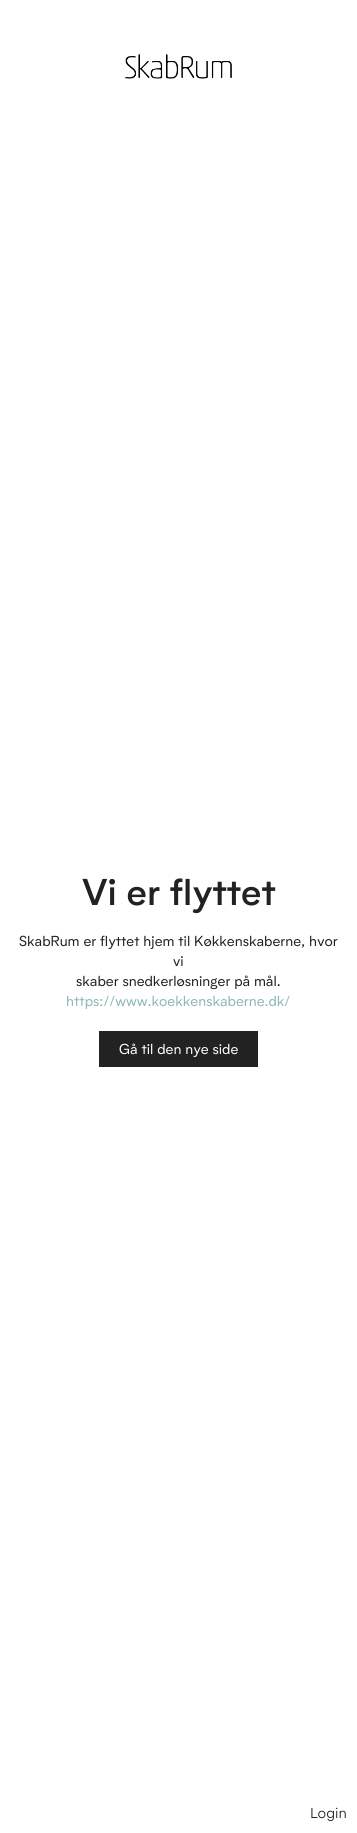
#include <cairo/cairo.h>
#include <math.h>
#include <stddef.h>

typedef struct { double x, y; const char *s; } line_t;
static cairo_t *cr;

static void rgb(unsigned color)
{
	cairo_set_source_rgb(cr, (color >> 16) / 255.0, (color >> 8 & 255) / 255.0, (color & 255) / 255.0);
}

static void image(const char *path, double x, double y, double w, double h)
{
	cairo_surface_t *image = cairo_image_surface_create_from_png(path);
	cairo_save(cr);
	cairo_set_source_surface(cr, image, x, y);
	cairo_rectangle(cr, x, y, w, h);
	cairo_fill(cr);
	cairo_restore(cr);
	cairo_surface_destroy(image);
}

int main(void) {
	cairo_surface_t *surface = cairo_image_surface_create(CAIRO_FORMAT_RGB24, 357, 1833);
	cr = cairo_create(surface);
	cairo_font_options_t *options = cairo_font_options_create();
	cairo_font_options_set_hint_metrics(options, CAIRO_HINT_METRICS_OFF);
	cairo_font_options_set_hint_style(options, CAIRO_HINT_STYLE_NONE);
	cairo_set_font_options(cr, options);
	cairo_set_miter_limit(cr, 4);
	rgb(0xffffff);
	cairo_paint(cr);
	image("img/1.png", 125, 54, 107, 25);
	rgb(0x222222);
	cairo_rectangle(cr, 99, 1031, 159, 36);
	cairo_fill(cr);
	cairo_select_font_face(cr, "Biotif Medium", CAIRO_FONT_SLANT_NORMAL, CAIRO_FONT_WEIGHT_NORMAL);
	cairo_set_font_size(cr, 36);
	cairo_move_to(cr, 82, 905);
	cairo_show_text(cr, "Vi er flyttet");
	cairo_select_font_face(cr, "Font", CAIRO_FONT_SLANT_NORMAL, CAIRO_FONT_WEIGHT_NORMAL);
	cairo_set_font_size(cr, 14);
	{
		static const line_t items[] = {
			{19, 946, "SkabRum er flyttet hjem til Køkkenskaberne, hvor"},
			{173, 966, "vi"},
			{76, 986, "skaber snedkerløsninger på mål."},
		};
		for (size_t i = 0; i < sizeof items / sizeof *items; i++) {
			cairo_move_to(cr, items[i].x, items[i].y);
			cairo_show_text(cr, items[i].s);
		}
	}
	rgb(0x8bb8b5);
	cairo_move_to(cr, 66, 1006);
	cairo_show_text(cr, "https://www.koekkenskaberne.dk/");
	rgb(0xffffff);
	cairo_move_to(cr, 119, 1054);
	cairo_show_text(cr, "Gå til den nye side");
	cairo_select_font_face(cr, "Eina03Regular", CAIRO_FONT_SLANT_NORMAL, CAIRO_FONT_WEIGHT_NORMAL);
	rgb(0x222222);
	cairo_move_to(cr, 310, 1818);
	cairo_show_text(cr, "Login");
	cairo_surface_write_to_png(surface, "page.png");
	cairo_font_options_destroy(options);
	cairo_destroy(cr);
	cairo_surface_destroy(surface);
	return 0;
}
